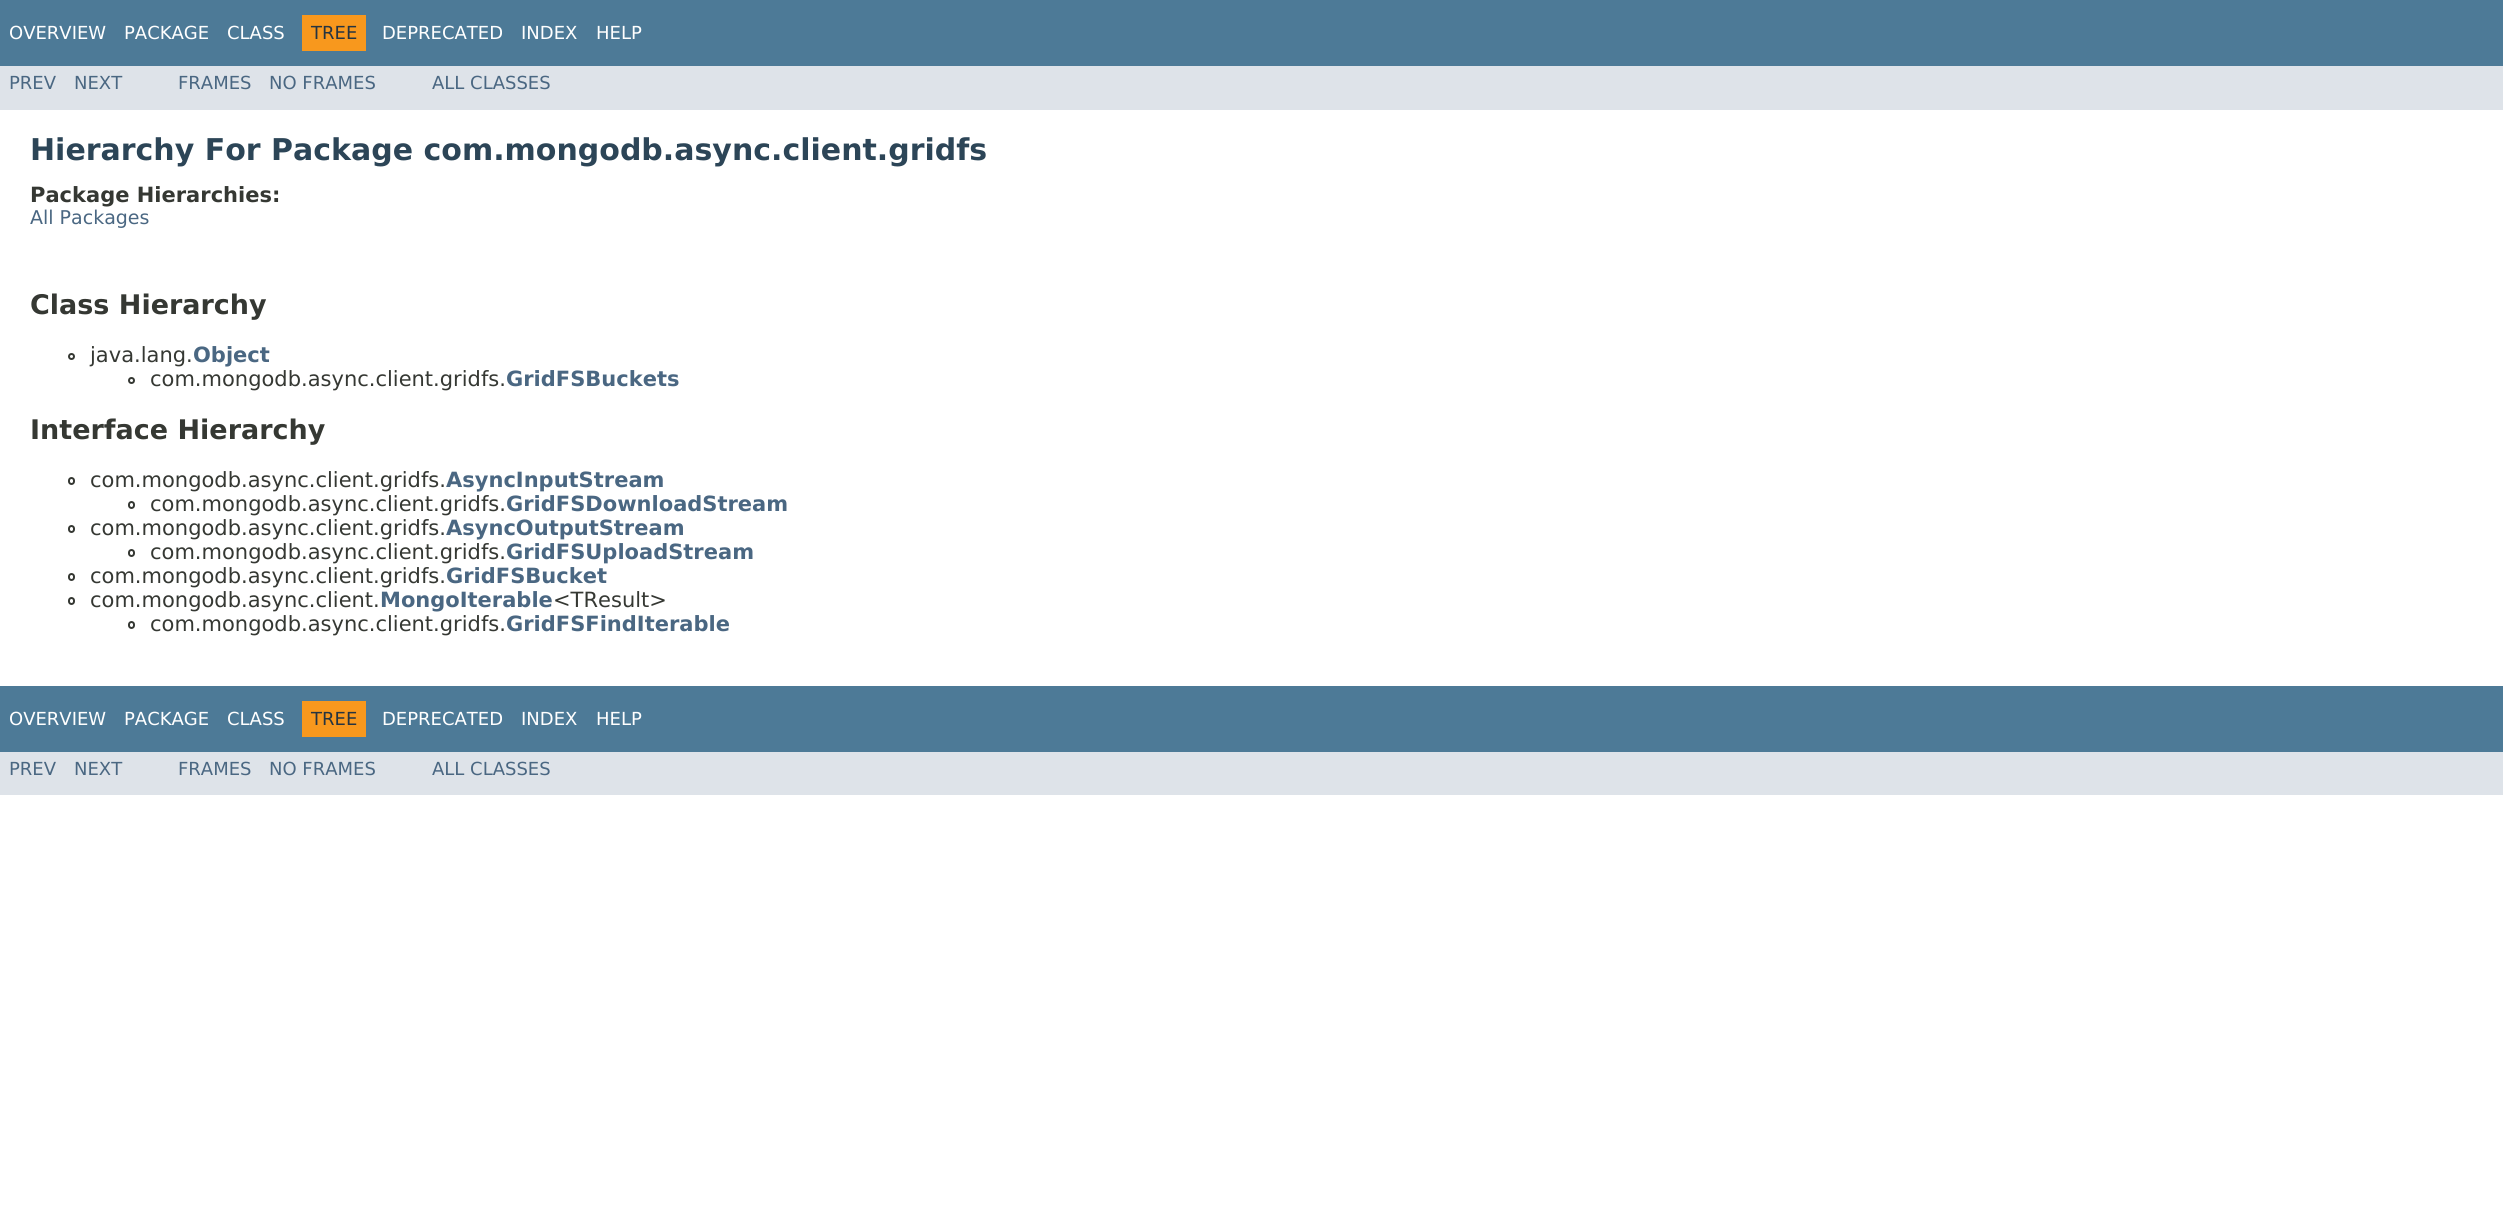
#include <cairo/cairo.h>
#include <math.h>
#include <stddef.h>

typedef struct { double x, y; const char *s; } line_t;
typedef struct { double x, y, w, h; unsigned color; } box_t;
static cairo_t *cr;

static void rgb(unsigned color)
{
	cairo_set_source_rgb(cr, (color >> 16) / 255.0, (color >> 8 & 255) / 255.0, (color & 255) / 255.0);
}

static void rrect(double x, double y, double w, double h, double r)
{
	cairo_new_sub_path(cr);
	cairo_arc(cr, x + w - r, y + h - r, r, 0, M_PI / 2);
	cairo_arc(cr, x + r, y + h - r, r, M_PI / 2, M_PI);
	cairo_arc(cr, x + r, y + r, r, M_PI, 1.5 * M_PI);
	cairo_arc(cr, x + w - r, y + r, r, 1.5 * M_PI, 2 * M_PI);
	cairo_close_path(cr);
}

int main(void) {
	cairo_surface_t *surface = cairo_image_surface_create(CAIRO_FORMAT_RGB24, 2503, 1228);
	cr = cairo_create(surface);
	cairo_font_options_t *options = cairo_font_options_create();
	cairo_font_options_set_hint_metrics(options, CAIRO_HINT_METRICS_OFF);
	cairo_font_options_set_hint_style(options, CAIRO_HINT_STYLE_NONE);
	cairo_set_font_options(cr, options);
	cairo_set_miter_limit(cr, 4);
	rgb(0xffffff);
	cairo_paint(cr);
	{
		static const box_t items[] = {
			{0, 0, 2503, 66, 0x4d7a97},
			{302, 15, 64, 36, 0xf8981d},
			{0, 66, 2503, 44, 0xdee3e9},
		};
		for (size_t i = 0; i < sizeof items / sizeof *items; i++) {
			rgb(items[i].color);
			cairo_rectangle(cr, items[i].x, items[i].y, items[i].w, items[i].h);
			cairo_fill(cr);
		}
	}
	cairo_arc(cr, 71.5, 356.5, 2.5, 0, 2 * M_PI);
	rgb(0x353833);
	cairo_stroke(cr);
	cairo_arc(cr, 131.5, 380.5, 2.5, 0, 2 * M_PI);
	cairo_stroke(cr);
	rrect(69, 478, 5, 6, 2.5);
	cairo_stroke(cr);
	rrect(129, 502, 5, 6, 2.5);
	cairo_stroke(cr);
	rrect(69, 526, 5, 6, 2.5);
	cairo_stroke(cr);
	rrect(129, 550, 5, 6, 2.5);
	cairo_stroke(cr);
	rrect(69, 574, 5, 6, 2.5);
	cairo_stroke(cr);
	rrect(69, 598, 5, 6, 2.5);
	cairo_stroke(cr);
	rrect(129, 622, 5, 6, 2.5);
	cairo_stroke(cr);
	{
		static const box_t items[] = {
			{0, 686, 2503, 66, 0x4d7a97},
			{302, 701, 64, 36, 0xf8981d},
			{0, 752, 2503, 43, 0xdee3e9},
		};
		for (size_t i = 0; i < sizeof items / sizeof *items; i++) {
			rgb(items[i].color);
			cairo_rectangle(cr, items[i].x, items[i].y, items[i].w, items[i].h);
			cairo_fill(cr);
		}
	}
	cairo_select_font_face(cr, "DejaVu Sans", CAIRO_FONT_SLANT_NORMAL, CAIRO_FONT_WEIGHT_NORMAL);
	cairo_set_font_size(cr, 18);
	rgb(0xffffff);
	{
		static const line_t items[] = {
			{9, 39, "OVERVIEW"},
			{124, 39, "PACKAGE"},
			{227, 39, "CLASS"},
		};
		for (size_t i = 0; i < sizeof items / sizeof *items; i++) {
			cairo_move_to(cr, items[i].x, items[i].y);
			cairo_show_text(cr, items[i].s);
		}
	}
	rgb(0x253441);
	cairo_move_to(cr, 311, 39);
	cairo_show_text(cr, "TREE");
	rgb(0xffffff);
	{
		static const line_t items[] = {
			{382, 39, "DEPRECATED"},
			{521, 39, "INDEX"},
			{596, 39, "HELP"},
		};
		for (size_t i = 0; i < sizeof items / sizeof *items; i++) {
			cairo_move_to(cr, items[i].x, items[i].y);
			cairo_show_text(cr, items[i].s);
		}
	}
	rgb(0x4a6782);
	{
		static const line_t items[] = {
			{9, 89, "PREV"},
			{74, 89, "NEXT"},
			{178, 89, "FRAMES"},
			{269, 89, "NO FRAMES"},
			{432, 89, "ALL CLASSES"},
		};
		for (size_t i = 0; i < sizeof items / sizeof *items; i++) {
			cairo_move_to(cr, items[i].x, items[i].y);
			cairo_show_text(cr, items[i].s);
		}
	}
	cairo_select_font_face(cr, "DejaVu Sans", CAIRO_FONT_SLANT_NORMAL, CAIRO_FONT_WEIGHT_BOLD);
	cairo_set_font_size(cr, 30);
	rgb(0x2c4557);
	cairo_move_to(cr, 30, 160);
	cairo_show_text(cr, "Hierarchy For Package com.mongodb.async.client.gridfs");
	cairo_set_font_size(cr, 21);
	rgb(0x353833);
	cairo_move_to(cr, 30, 202);
	cairo_show_text(cr, "Package Hierarchies:");
	cairo_select_font_face(cr, "DejaVu Sans", CAIRO_FONT_SLANT_NORMAL, CAIRO_FONT_WEIGHT_NORMAL);
	cairo_set_font_size(cr, 19);
	rgb(0x4a6782);
	cairo_move_to(cr, 30, 224);
	cairo_show_text(cr, "All Packages");
	cairo_select_font_face(cr, "DejaVu Sans", CAIRO_FONT_SLANT_NORMAL, CAIRO_FONT_WEIGHT_BOLD);
	cairo_set_font_size(cr, 27);
	rgb(0x353833);
	cairo_move_to(cr, 30, 314);
	cairo_show_text(cr, "Class Hierarchy");
	cairo_select_font_face(cr, "DejaVu Sans", CAIRO_FONT_SLANT_NORMAL, CAIRO_FONT_WEIGHT_NORMAL);
	cairo_set_font_size(cr, 21);
	cairo_move_to(cr, 90, 362);
	cairo_show_text(cr, "java.lang.");
	cairo_select_font_face(cr, "DejaVu Sans", CAIRO_FONT_SLANT_NORMAL, CAIRO_FONT_WEIGHT_BOLD);
	rgb(0x4a6782);
	cairo_move_to(cr, 193, 362);
	cairo_show_text(cr, "Object");
	cairo_select_font_face(cr, "DejaVu Sans", CAIRO_FONT_SLANT_NORMAL, CAIRO_FONT_WEIGHT_NORMAL);
	rgb(0x353833);
	cairo_move_to(cr, 150, 386);
	cairo_show_text(cr, "com.mongodb.async.client.gridfs.");
	cairo_select_font_face(cr, "DejaVu Sans", CAIRO_FONT_SLANT_NORMAL, CAIRO_FONT_WEIGHT_BOLD);
	rgb(0x4a6782);
	cairo_move_to(cr, 506, 386);
	cairo_show_text(cr, "GridFSBuckets");
	cairo_set_font_size(cr, 27);
	rgb(0x353833);
	cairo_move_to(cr, 30, 439);
	cairo_show_text(cr, "Interface Hierarchy");
	cairo_select_font_face(cr, "DejaVu Sans", CAIRO_FONT_SLANT_NORMAL, CAIRO_FONT_WEIGHT_NORMAL);
	cairo_set_font_size(cr, 21);
	cairo_move_to(cr, 90, 487);
	cairo_show_text(cr, "com.mongodb.async.client.gridfs.");
	cairo_select_font_face(cr, "DejaVu Sans", CAIRO_FONT_SLANT_NORMAL, CAIRO_FONT_WEIGHT_BOLD);
	rgb(0x4a6782);
	cairo_move_to(cr, 446, 487);
	cairo_show_text(cr, "AsyncInputStream");
	cairo_select_font_face(cr, "DejaVu Sans", CAIRO_FONT_SLANT_NORMAL, CAIRO_FONT_WEIGHT_NORMAL);
	rgb(0x353833);
	cairo_move_to(cr, 150, 511);
	cairo_show_text(cr, "com.mongodb.async.client.gridfs.");
	cairo_select_font_face(cr, "DejaVu Sans", CAIRO_FONT_SLANT_NORMAL, CAIRO_FONT_WEIGHT_BOLD);
	rgb(0x4a6782);
	cairo_move_to(cr, 506, 511);
	cairo_show_text(cr, "GridFSDownloadStream");
	cairo_select_font_face(cr, "DejaVu Sans", CAIRO_FONT_SLANT_NORMAL, CAIRO_FONT_WEIGHT_NORMAL);
	rgb(0x353833);
	cairo_move_to(cr, 90, 535);
	cairo_show_text(cr, "com.mongodb.async.client.gridfs.");
	cairo_select_font_face(cr, "DejaVu Sans", CAIRO_FONT_SLANT_NORMAL, CAIRO_FONT_WEIGHT_BOLD);
	rgb(0x4a6782);
	cairo_move_to(cr, 446, 535);
	cairo_show_text(cr, "AsyncOutputStream");
	cairo_select_font_face(cr, "DejaVu Sans", CAIRO_FONT_SLANT_NORMAL, CAIRO_FONT_WEIGHT_NORMAL);
	rgb(0x353833);
	cairo_move_to(cr, 150, 559);
	cairo_show_text(cr, "com.mongodb.async.client.gridfs.");
	cairo_select_font_face(cr, "DejaVu Sans", CAIRO_FONT_SLANT_NORMAL, CAIRO_FONT_WEIGHT_BOLD);
	rgb(0x4a6782);
	cairo_move_to(cr, 506, 559);
	cairo_show_text(cr, "GridFSUploadStream");
	cairo_select_font_face(cr, "DejaVu Sans", CAIRO_FONT_SLANT_NORMAL, CAIRO_FONT_WEIGHT_NORMAL);
	rgb(0x353833);
	cairo_move_to(cr, 90, 583);
	cairo_show_text(cr, "com.mongodb.async.client.gridfs.");
	cairo_select_font_face(cr, "DejaVu Sans", CAIRO_FONT_SLANT_NORMAL, CAIRO_FONT_WEIGHT_BOLD);
	rgb(0x4a6782);
	cairo_move_to(cr, 446, 583);
	cairo_show_text(cr, "GridFSBucket");
	cairo_select_font_face(cr, "DejaVu Sans", CAIRO_FONT_SLANT_NORMAL, CAIRO_FONT_WEIGHT_NORMAL);
	rgb(0x353833);
	cairo_move_to(cr, 90, 607);
	cairo_show_text(cr, "com.mongodb.async.client.");
	cairo_select_font_face(cr, "DejaVu Sans", CAIRO_FONT_SLANT_NORMAL, CAIRO_FONT_WEIGHT_BOLD);
	rgb(0x4a6782);
	cairo_move_to(cr, 380, 607);
	cairo_show_text(cr, "MongoIterable");
	cairo_select_font_face(cr, "DejaVu Sans", CAIRO_FONT_SLANT_NORMAL, CAIRO_FONT_WEIGHT_NORMAL);
	rgb(0x353833);
	cairo_move_to(cr, 553, 607);
	cairo_show_text(cr, "<TResult>");
	cairo_move_to(cr, 150, 631);
	cairo_show_text(cr, "com.mongodb.async.client.gridfs.");
	cairo_select_font_face(cr, "DejaVu Sans", CAIRO_FONT_SLANT_NORMAL, CAIRO_FONT_WEIGHT_BOLD);
	rgb(0x4a6782);
	cairo_move_to(cr, 506, 631);
	cairo_show_text(cr, "GridFSFindIterable");
	cairo_select_font_face(cr, "DejaVu Sans", CAIRO_FONT_SLANT_NORMAL, CAIRO_FONT_WEIGHT_NORMAL);
	cairo_set_font_size(cr, 18);
	rgb(0xffffff);
	{
		static const line_t items[] = {
			{9, 725, "OVERVIEW"},
			{124, 725, "PACKAGE"},
			{227, 725, "CLASS"},
		};
		for (size_t i = 0; i < sizeof items / sizeof *items; i++) {
			cairo_move_to(cr, items[i].x, items[i].y);
			cairo_show_text(cr, items[i].s);
		}
	}
	rgb(0x253441);
	cairo_move_to(cr, 311, 725);
	cairo_show_text(cr, "TREE");
	rgb(0xffffff);
	{
		static const line_t items[] = {
			{382, 725, "DEPRECATED"},
			{521, 725, "INDEX"},
			{596, 725, "HELP"},
		};
		for (size_t i = 0; i < sizeof items / sizeof *items; i++) {
			cairo_move_to(cr, items[i].x, items[i].y);
			cairo_show_text(cr, items[i].s);
		}
	}
	rgb(0x4a6782);
	{
		static const line_t items[] = {
			{9, 775, "PREV"},
			{74, 775, "NEXT"},
			{178, 775, "FRAMES"},
			{269, 775, "NO FRAMES"},
			{432, 775, "ALL CLASSES"},
		};
		for (size_t i = 0; i < sizeof items / sizeof *items; i++) {
			cairo_move_to(cr, items[i].x, items[i].y);
			cairo_show_text(cr, items[i].s);
		}
	}
	cairo_surface_write_to_png(surface, "page.png");
	cairo_font_options_destroy(options);
	cairo_destroy(cr);
	cairo_surface_destroy(surface);
	return 0;
}
